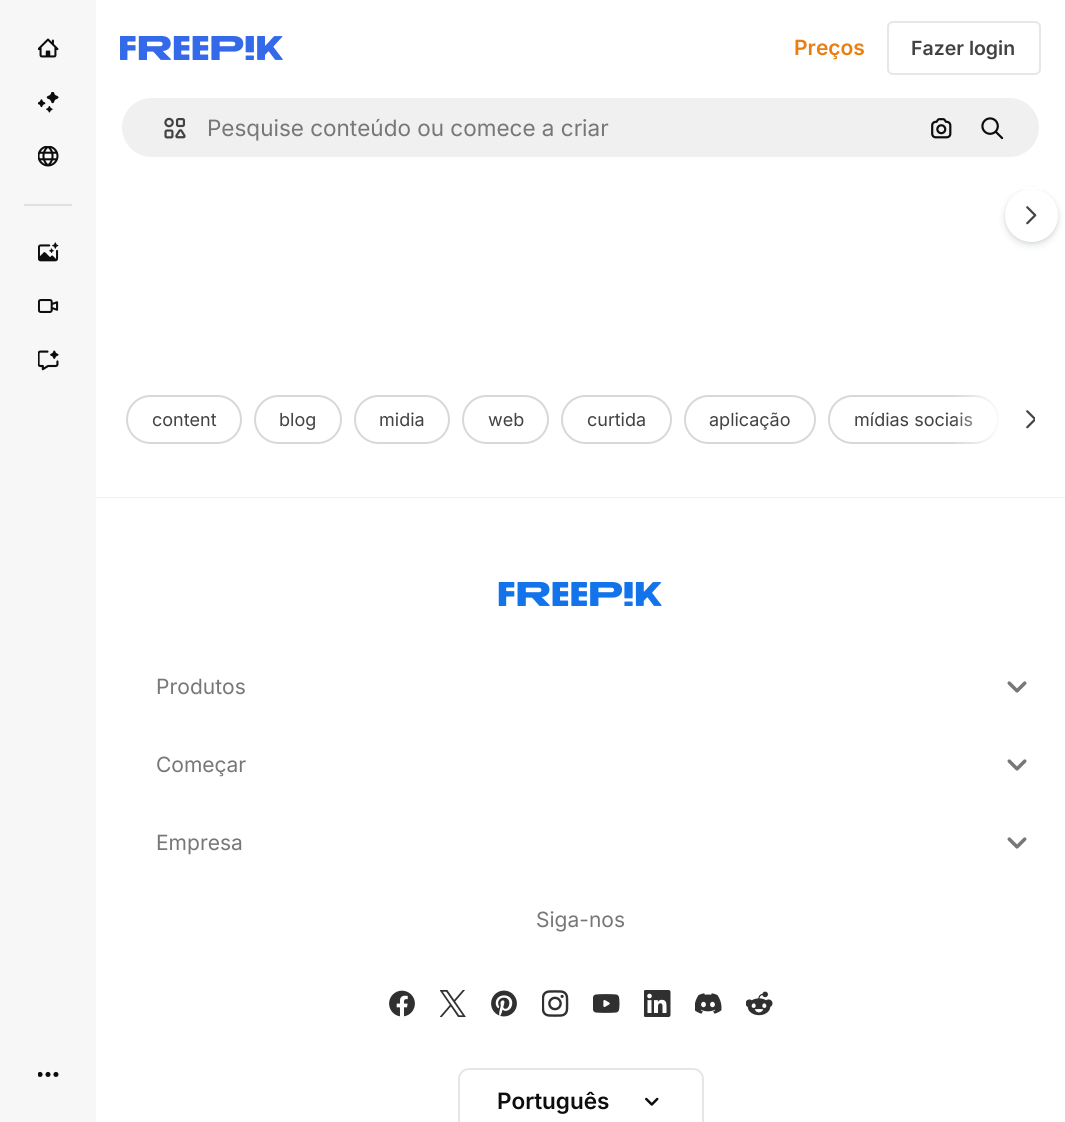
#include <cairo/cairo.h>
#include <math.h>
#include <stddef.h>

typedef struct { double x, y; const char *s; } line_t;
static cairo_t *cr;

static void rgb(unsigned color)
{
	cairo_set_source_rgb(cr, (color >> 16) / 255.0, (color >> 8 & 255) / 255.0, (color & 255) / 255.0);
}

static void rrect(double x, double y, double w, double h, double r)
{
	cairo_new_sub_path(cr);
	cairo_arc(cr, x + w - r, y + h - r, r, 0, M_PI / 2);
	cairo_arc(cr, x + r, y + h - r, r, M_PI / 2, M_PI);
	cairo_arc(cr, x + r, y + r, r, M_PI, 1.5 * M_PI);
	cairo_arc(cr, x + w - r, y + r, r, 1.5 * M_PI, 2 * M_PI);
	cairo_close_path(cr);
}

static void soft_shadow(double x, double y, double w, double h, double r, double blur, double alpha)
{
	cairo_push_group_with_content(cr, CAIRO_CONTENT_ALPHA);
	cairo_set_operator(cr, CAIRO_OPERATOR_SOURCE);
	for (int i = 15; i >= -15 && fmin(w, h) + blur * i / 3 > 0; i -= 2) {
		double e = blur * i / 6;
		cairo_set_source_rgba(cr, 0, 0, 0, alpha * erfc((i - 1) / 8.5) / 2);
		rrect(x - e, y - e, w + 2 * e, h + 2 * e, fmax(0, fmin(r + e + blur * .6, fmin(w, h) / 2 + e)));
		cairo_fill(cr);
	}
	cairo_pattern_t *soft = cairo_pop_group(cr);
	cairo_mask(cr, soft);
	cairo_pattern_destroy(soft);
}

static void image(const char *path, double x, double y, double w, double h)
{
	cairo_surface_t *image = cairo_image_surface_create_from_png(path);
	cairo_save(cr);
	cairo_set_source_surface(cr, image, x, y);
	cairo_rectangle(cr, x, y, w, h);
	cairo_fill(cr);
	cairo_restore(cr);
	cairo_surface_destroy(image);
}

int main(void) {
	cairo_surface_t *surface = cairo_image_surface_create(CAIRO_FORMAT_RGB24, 1065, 1122);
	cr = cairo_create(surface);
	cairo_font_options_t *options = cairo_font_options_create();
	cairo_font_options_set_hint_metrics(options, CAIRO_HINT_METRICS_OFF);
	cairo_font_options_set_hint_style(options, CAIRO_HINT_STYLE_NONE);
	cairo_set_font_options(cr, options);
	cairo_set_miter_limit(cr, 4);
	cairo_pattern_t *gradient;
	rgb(0xffffff);
	cairo_paint(cr);
	rgb(0xf7f7f7);
	cairo_rectangle(cr, 0, 0, 96, 1122);
	cairo_fill(cr);
	image("img/1.png", 38, 38, 21, 20);
	image("img/2.png", 38, 92, 21, 21);
	image("img/3.png", 38, 146, 21, 21);
	rgb(0xe0e0e0);
	cairo_rectangle(cr, 24, 204, 48, 2);
	cairo_fill(cr);
	image("img/4.png", 38, 242, 21, 20);
	image("img/5.png", 38, 299, 21, 14);
	image("img/6.png", 38, 350, 21, 21);
	image("img/7.png", 38, 1071, 21, 6);
	rgb(0x374957);
	soft_shadow(1005, 192, 53, 53, 26.5, 4, 0.15);
	soft_shadow(1005, 191, 53, 52, 26, 1.5, 0.1);
	rgb(0xffffff);
	cairo_rectangle(cr, 1021, 187, 21, 2);
	cairo_fill(cr);
	image("img/8.png", 120, 36, 163, 24);
	rrect(888, 22, 152, 52, 5);
	rgb(0xe7e7e7);
	cairo_stroke(cr);
	rgb(0xf0f0f0);
	rrect(121, 97, 919, 61, 30.5);
	cairo_fill_preserve(cr);
	rgb(0xffffff);
	cairo_stroke(cr);
	image("img/9.png", 164, 117, 22, 22);
	image("img/10.png", 931, 118, 21, 21);
	image("img/11.png", 981, 117, 23, 23);
	cairo_arc(cr, 1031.5, 215.5, 26.5, 0, 2 * M_PI);
	cairo_fill(cr);
	image("img/12.png", 1026, 206, 11, 19);
	rrect(127, 396, 114, 47, 23.5);
	rgb(0xd8d8d8);
	cairo_stroke(cr);
	rrect(255, 396, 86, 47, 23.5);
	cairo_stroke(cr);
	rrect(355, 396, 94, 47, 23.5);
	cairo_stroke(cr);
	rrect(463, 396, 85, 47, 23.5);
	cairo_stroke(cr);
	rrect(562, 396, 109, 47, 23.5);
	cairo_stroke(cr);
	rrect(685, 396, 130, 47, 23.5);
	cairo_stroke(cr);
	rrect(829, 396, 169, 47, 23.5);
	cairo_stroke(cr);
	image("img/13.png", 1026, 410, 9, 19);
	rgb(0xf0f0f0);
	cairo_rectangle(cr, 96, 497, 969, 1);
	cairo_fill(cr);
	image("img/14.png", 498, 582, 164, 24);
	image("img/15.png", 1007, 681, 20, 12);
	image("img/15.png", 1007, 759, 20, 12);
	image("img/15.png", 1007, 837, 20, 12);
	image("img/16.png", 389, 990, 26, 27);
	image("img/17.png", 440, 990, 26, 27);
	image("img/18.png", 491, 990, 26, 27);
	image("img/19.png", 542, 990, 27, 27);
	image("img/20.png", 593, 994, 27, 19);
	image("img/21.png", 644, 990, 27, 27);
	image("img/22.png", 695, 993, 27, 21);
	image("img/23.png", 746, 991, 27, 25);
	rrect(459, 1069, 244, 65, 10);
	rgb(0xe6e6e6);
	cairo_stroke(cr);
	image("img/24.png", 645, 1097, 14, 9);
	cairo_select_font_face(cr, "Inter SemiBold", CAIRO_FONT_SLANT_NORMAL, CAIRO_FONT_WEIGHT_NORMAL);
	cairo_set_font_size(cr, 21);
	rgb(0xea7e11);
	cairo_move_to(cr, 794, 55);
	cairo_show_text(cr, "Preços");
	cairo_set_font_size(cr, 19.5);
	rgb(0x424242);
	cairo_move_to(cr, 911, 55);
	cairo_show_text(cr, "Fazer login");
	cairo_select_font_face(cr, "Inter", CAIRO_FONT_SLANT_NORMAL, CAIRO_FONT_WEIGHT_NORMAL);
	cairo_set_font_size(cr, 22.5);
	rgb(0x777777);
	cairo_move_to(cr, 207, 136);
	cairo_show_text(cr, "Pesquise conteúdo ou comece a criar");
	cairo_set_font_size(cr, 18);
	rgb(0x424242);
	{
		static const line_t items[] = {
			{152, 426, "content"},
			{279, 426, "blog"},
			{379, 426, "midia"},
			{488, 426, "web"},
			{587, 426, "curtida"},
			{709, 426, "aplicação"},
			{854, 426, "mídias sociais"},
		};
		for (size_t i = 0; i < sizeof items / sizeof *items; i++) {
			cairo_move_to(cr, items[i].x, items[i].y);
			cairo_show_text(cr, items[i].s);
		}
	}
	gradient = cairo_pattern_create_linear(1005, 419, 953, 419);
	cairo_pattern_add_color_stop_rgba(gradient, 0, 1, 1, 1, 1);
	cairo_pattern_add_color_stop_rgba(gradient, 1, 1, 1, 1, 0);
	cairo_set_source(cr, gradient);
	cairo_pattern_destroy(gradient);
	cairo_rectangle(cr, 954, 395, 45, 49);
	cairo_fill(cr);
	cairo_set_font_size(cr, 21);
	rgb(0x777777);
	{
		static const line_t items[] = {
			{156, 694, "Produtos"},
			{156, 772, "Começar"},
			{156, 850, "Empresa"},
			{536, 927, "Siga-nos"},
		};
		for (size_t i = 0; i < sizeof items / sizeof *items; i++) {
			cairo_move_to(cr, items[i].x, items[i].y);
			cairo_show_text(cr, items[i].s);
		}
	}
	cairo_select_font_face(cr, "Inter SemiBold", CAIRO_FONT_SLANT_NORMAL, CAIRO_FONT_WEIGHT_NORMAL);
	cairo_set_font_size(cr, 22.5);
	rgb(0x0d0d0d);
	cairo_move_to(cr, 497, 1109);
	cairo_show_text(cr, "Português");
	cairo_surface_write_to_png(surface, "page.png");
	cairo_font_options_destroy(options);
	cairo_destroy(cr);
	cairo_surface_destroy(surface);
	return 0;
}
